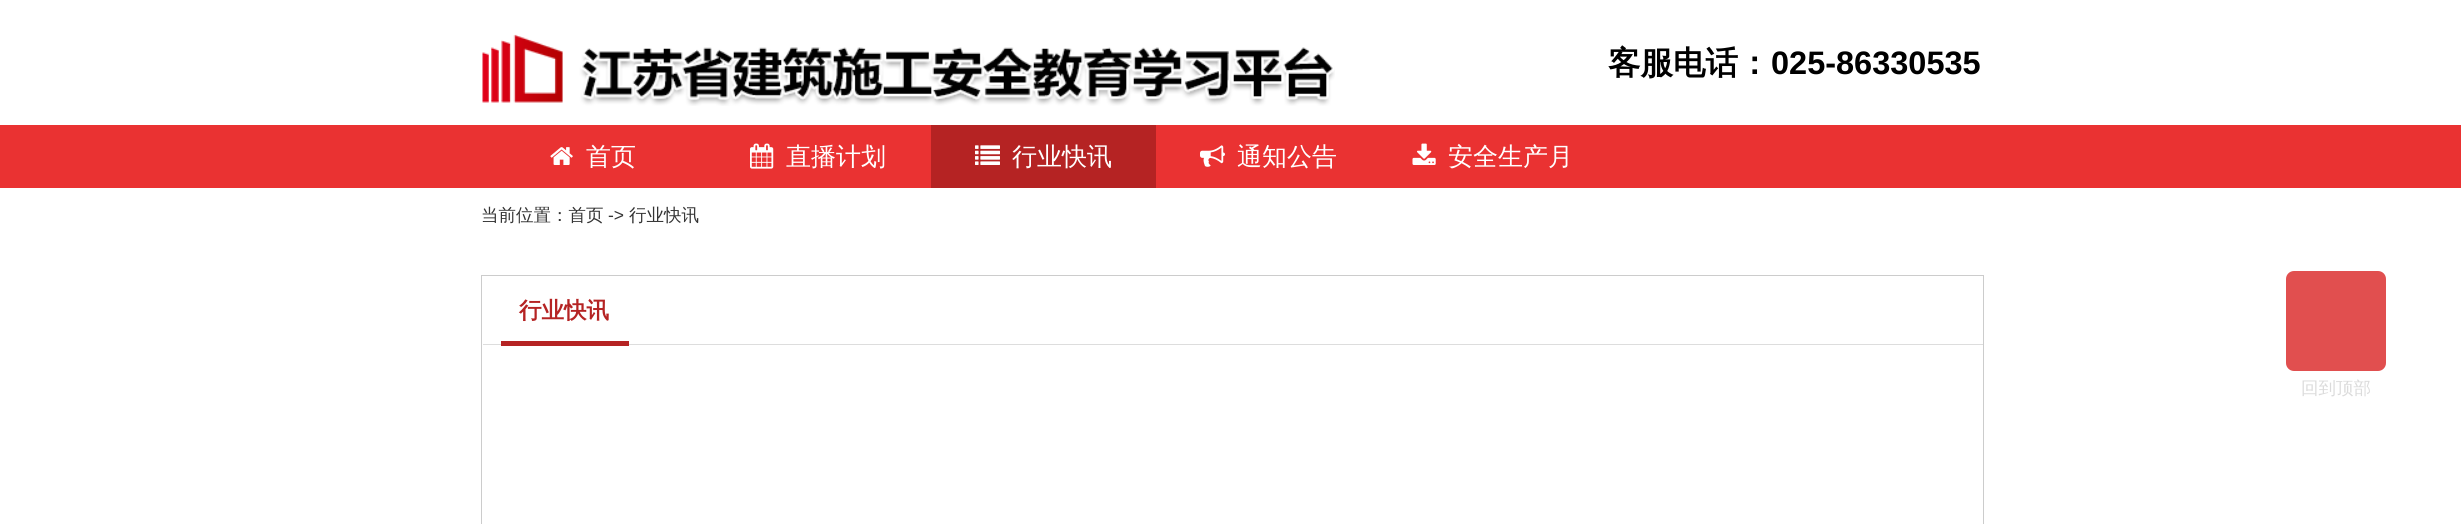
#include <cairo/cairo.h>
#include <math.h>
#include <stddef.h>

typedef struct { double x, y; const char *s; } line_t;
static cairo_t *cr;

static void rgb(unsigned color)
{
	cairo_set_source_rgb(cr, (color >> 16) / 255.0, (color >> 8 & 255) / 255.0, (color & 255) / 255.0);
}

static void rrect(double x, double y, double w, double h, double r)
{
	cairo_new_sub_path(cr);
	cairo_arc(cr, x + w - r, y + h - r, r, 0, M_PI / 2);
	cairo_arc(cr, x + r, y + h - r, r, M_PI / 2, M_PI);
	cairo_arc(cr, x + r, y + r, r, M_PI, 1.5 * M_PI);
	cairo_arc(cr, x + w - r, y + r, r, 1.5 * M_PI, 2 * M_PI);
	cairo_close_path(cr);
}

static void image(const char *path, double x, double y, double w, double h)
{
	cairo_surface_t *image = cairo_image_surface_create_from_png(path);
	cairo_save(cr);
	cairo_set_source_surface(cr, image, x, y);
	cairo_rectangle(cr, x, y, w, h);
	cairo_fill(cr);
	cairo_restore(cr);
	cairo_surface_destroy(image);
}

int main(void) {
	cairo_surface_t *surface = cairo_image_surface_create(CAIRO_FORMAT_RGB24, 2461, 524);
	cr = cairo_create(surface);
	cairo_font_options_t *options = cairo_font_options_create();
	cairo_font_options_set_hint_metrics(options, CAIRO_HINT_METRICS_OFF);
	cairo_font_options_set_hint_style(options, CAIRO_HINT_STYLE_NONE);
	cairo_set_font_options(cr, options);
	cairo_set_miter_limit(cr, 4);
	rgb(0xffffff);
	cairo_paint(cr);
	rgb(0xea3232);
	cairo_rectangle(cr, 0, 125, 2461, 63);
	cairo_fill(cr);
	image("img/1.png", 550, 147, 23, 18);
	image("img/2.png", 750, 143, 24, 26);
	rgb(0xb52323);
	cairo_rectangle(cr, 931, 125, 225, 63);
	cairo_fill(cr);
	image("img/3.png", 975, 145, 25, 20);
	image("img/4.png", 1200, 145, 25, 22);
	image("img/5.png", 1412, 143, 24, 22);
	image("img/6.png", 482, 34, 853, 72);
	rgb(0xe14f4f);
	rrect(2286, 271, 100, 100, 8);
	cairo_fill(cr);
	cairo_rectangle(cr, 481.5, 275.5, 1502, 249);
	rgb(0xcccccc);
	cairo_set_line_width(cr, 1);
	cairo_stroke(cr);
	rgb(0xdddddd);
	cairo_rectangle(cr, 483, 344, 1500, 1);
	cairo_fill(cr);
	rgb(0xb52323);
	cairo_rectangle(cr, 501, 341, 128, 5);
	cairo_fill(cr);
	cairo_select_font_face(cr, "WenQuanYi Zen Hei Medium", CAIRO_FONT_SLANT_NORMAL, CAIRO_FONT_WEIGHT_NORMAL);
	cairo_set_font_size(cr, 25);
	rgb(0xffffff);
	{
		static const line_t items[] = {
			{586, 165, "首页"},
			{786, 165, "直播计划"},
			{1012, 165, "行业快讯"},
			{1237, 165, "通知公告"},
			{1448, 165, "安全生产月"},
		};
		for (size_t i = 0; i < sizeof items / sizeof *items; i++) {
			cairo_move_to(cr, items[i].x, items[i].y);
			cairo_show_text(cr, items[i].s);
		}
	}
	cairo_select_font_face(cr, "WenQuanYi Zen Hei", CAIRO_FONT_SLANT_NORMAL, CAIRO_FONT_WEIGHT_BOLD);
	cairo_set_font_size(cr, 32.5);
	rgb(0x000000);
	cairo_move_to(cr, 1608, 74);
	cairo_show_text(cr, "客服电话：");
	cairo_select_font_face(cr, "Liberation Sans", CAIRO_FONT_SLANT_NORMAL, CAIRO_FONT_WEIGHT_BOLD);
	cairo_move_to(cr, 1771, 74);
	cairo_show_text(cr, "025-86330535");
	cairo_select_font_face(cr, "WenQuanYi Zen Hei Medium", CAIRO_FONT_SLANT_NORMAL, CAIRO_FONT_WEIGHT_NORMAL);
	cairo_set_font_size(cr, 17.5);
	rgb(0xdbdbdb);
	cairo_move_to(cr, 2301, 394);
	cairo_show_text(cr, "回到顶部");
	rgb(0x333333);
	cairo_move_to(cr, 481, 221);
	cairo_show_text(cr, "当前位置：首页");
	cairo_select_font_face(cr, "Liberation Sans", CAIRO_FONT_SLANT_NORMAL, CAIRO_FONT_WEIGHT_NORMAL);
	cairo_move_to(cr, 608, 221);
	cairo_show_text(cr, "->");
	cairo_select_font_face(cr, "WenQuanYi Zen Hei Medium", CAIRO_FONT_SLANT_NORMAL, CAIRO_FONT_WEIGHT_NORMAL);
	cairo_move_to(cr, 629, 221);
	cairo_show_text(cr, "行业快讯");
	cairo_select_font_face(cr, "WenQuanYi Zen Hei", CAIRO_FONT_SLANT_NORMAL, CAIRO_FONT_WEIGHT_BOLD);
	cairo_set_font_size(cr, 22.5);
	rgb(0xb52323);
	cairo_move_to(cr, 519, 318);
	cairo_show_text(cr, "行业快讯");
	cairo_surface_write_to_png(surface, "page.png");
	cairo_font_options_destroy(options);
	cairo_destroy(cr);
	cairo_surface_destroy(surface);
	return 0;
}
